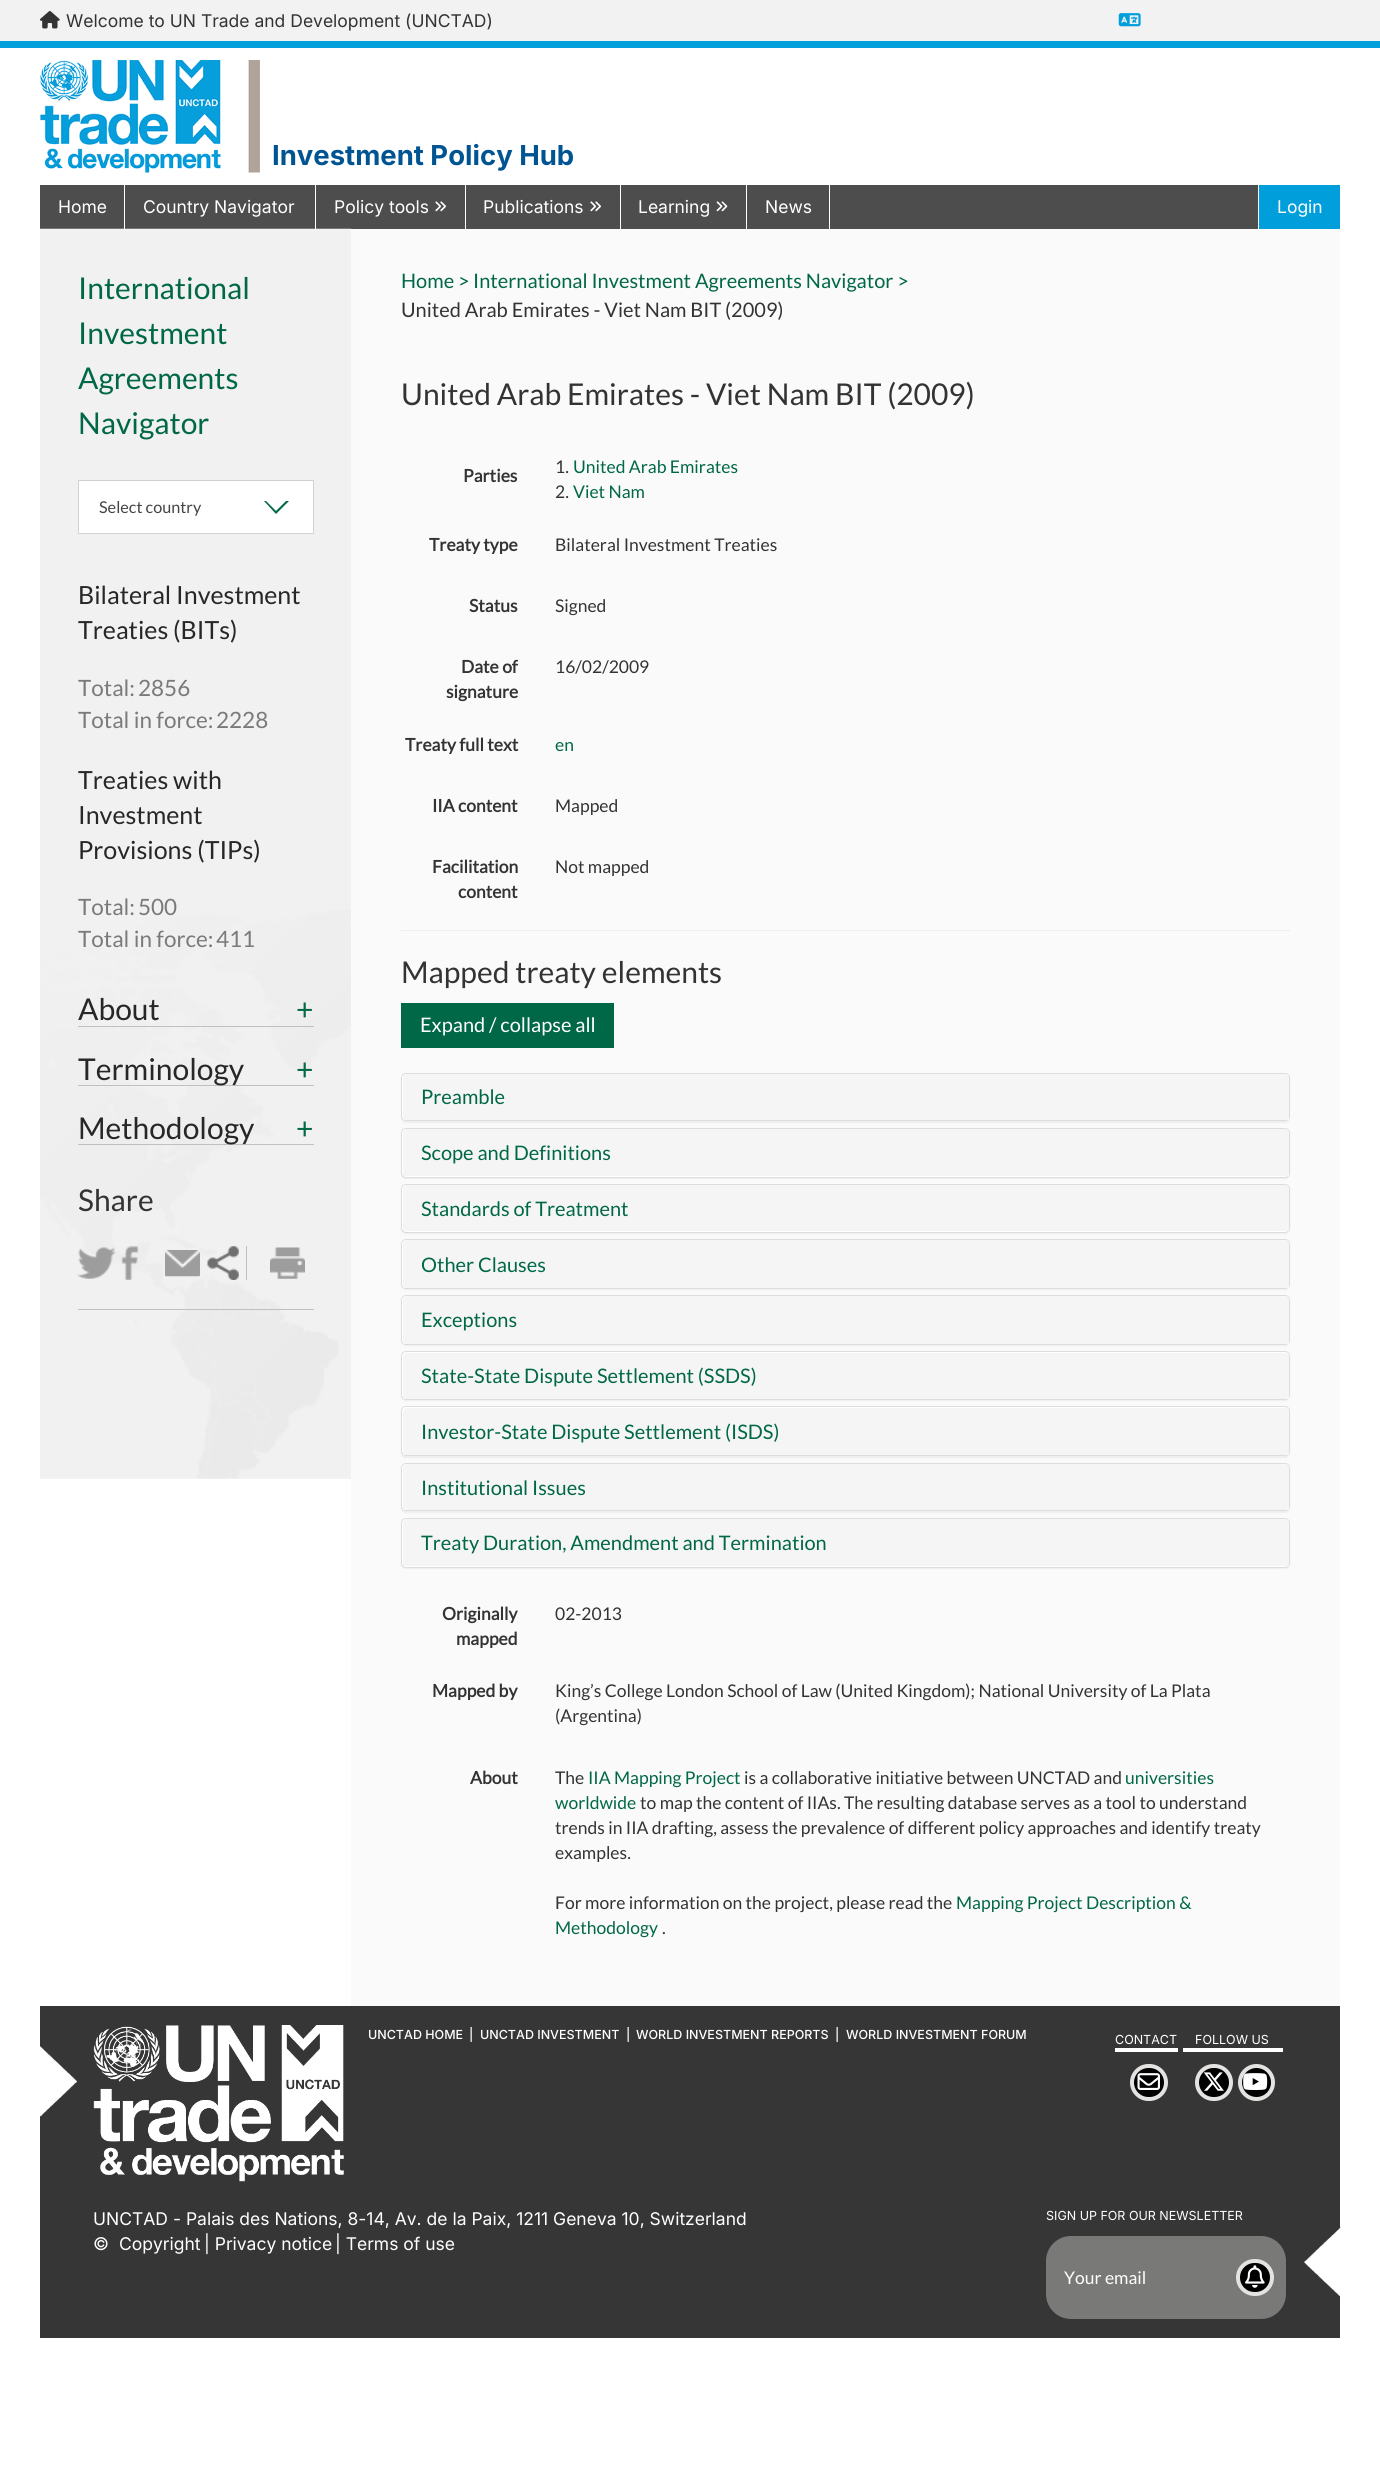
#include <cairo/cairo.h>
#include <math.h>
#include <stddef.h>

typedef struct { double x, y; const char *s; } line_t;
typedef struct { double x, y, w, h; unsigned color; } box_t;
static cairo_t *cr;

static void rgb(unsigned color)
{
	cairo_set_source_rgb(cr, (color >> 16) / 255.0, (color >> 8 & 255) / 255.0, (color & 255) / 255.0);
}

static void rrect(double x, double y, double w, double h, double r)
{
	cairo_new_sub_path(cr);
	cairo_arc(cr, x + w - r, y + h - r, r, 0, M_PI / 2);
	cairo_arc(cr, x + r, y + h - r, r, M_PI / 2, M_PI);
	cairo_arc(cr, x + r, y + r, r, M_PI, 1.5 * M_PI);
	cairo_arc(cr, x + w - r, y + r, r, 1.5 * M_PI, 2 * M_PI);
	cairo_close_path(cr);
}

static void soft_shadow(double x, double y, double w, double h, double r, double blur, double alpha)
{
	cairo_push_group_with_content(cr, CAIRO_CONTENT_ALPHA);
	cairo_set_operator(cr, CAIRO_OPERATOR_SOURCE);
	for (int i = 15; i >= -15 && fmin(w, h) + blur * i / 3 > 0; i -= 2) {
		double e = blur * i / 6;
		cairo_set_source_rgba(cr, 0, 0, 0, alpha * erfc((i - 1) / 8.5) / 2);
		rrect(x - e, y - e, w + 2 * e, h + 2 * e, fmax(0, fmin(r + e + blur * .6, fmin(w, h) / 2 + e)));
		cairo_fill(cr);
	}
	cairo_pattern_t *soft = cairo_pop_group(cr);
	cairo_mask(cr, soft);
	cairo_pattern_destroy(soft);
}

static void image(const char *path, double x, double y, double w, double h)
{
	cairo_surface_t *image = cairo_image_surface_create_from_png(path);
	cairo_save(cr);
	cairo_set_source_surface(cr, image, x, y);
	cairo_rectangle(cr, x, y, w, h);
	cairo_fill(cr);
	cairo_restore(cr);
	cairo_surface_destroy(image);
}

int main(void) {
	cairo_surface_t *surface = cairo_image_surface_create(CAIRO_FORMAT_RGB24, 1380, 2466);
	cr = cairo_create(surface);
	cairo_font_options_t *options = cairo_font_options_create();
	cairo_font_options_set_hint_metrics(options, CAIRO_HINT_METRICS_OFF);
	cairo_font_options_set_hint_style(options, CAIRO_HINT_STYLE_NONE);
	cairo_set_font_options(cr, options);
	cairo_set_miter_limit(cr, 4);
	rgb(0xffffff);
	cairo_paint(cr);
	rgb(0xf2f2f2);
	cairo_rectangle(cr, 0, 0, 1380, 41);
	cairo_fill(cr);
	rgb(0x009edb);
	cairo_rectangle(cr, 0, 41, 1380, 7);
	cairo_fill(cr);
	image("img/1.png", 40, 11, 20, 18);
	image("img/2.png", 1118, 13, 23, 14);
	image("img/3.png", 40, 60, 220, 113);
	{
		static const box_t items[] = {
			{40, 185, 1218, 44, 0x4d4d4d},
			{124, 185, 1, 44, 0xffffff},
			{315, 185, 1, 44, 0xffffff},
			{465, 185, 1, 44, 0xffffff},
		};
		for (size_t i = 0; i < sizeof items / sizeof *items; i++) {
			rgb(items[i].color);
			cairo_rectangle(cr, items[i].x, items[i].y, items[i].w, items[i].h);
			cairo_fill(cr);
		}
	}
	image("img/4.png", 435, 201, 11, 11);
	cairo_rectangle(cr, 620, 185, 1, 44);
	cairo_fill(cr);
	image("img/4.png", 590, 201, 11, 11);
	cairo_rectangle(cr, 746, 185, 1, 44);
	cairo_fill(cr);
	image("img/5.png", 716, 201, 12, 11);
	cairo_rectangle(cr, 829, 185, 1, 44);
	cairo_fill(cr);
	rgb(0x009edb);
	cairo_rectangle(cr, 1259, 185, 81, 44);
	cairo_fill(cr);
	image("img/6.png", 40, 228, 312, 1251);
	rgb(0xffffff);
	cairo_rectangle(cr, 78.5, 480.5, 235, 53);
	cairo_fill_preserve(cr);
	rgb(0xd1d1d1);
	cairo_set_line_width(cr, 1);
	cairo_stroke(cr);
	rgb(0x006747);
	cairo_new_path(cr);
	cairo_move_to(cr, 264, 501);
	cairo_line_to(cr, 289, 501);
	cairo_line_to(cr, 276, 514);
	cairo_close_path(cr);
	cairo_fill(cr);
	rgb(0xffffff);
	cairo_new_path(cr);
	cairo_move_to(cr, 266, 501);
	cairo_line_to(cr, 286, 501);
	cairo_line_to(cr, 276, 511);
	cairo_close_path(cr);
	cairo_fill(cr);
	{
		static const box_t items[] = {
			{78, 1026, 236, 1, 0xc0c0c0},
			{78, 1085, 236, 1, 0xc0c0c0},
			{78, 1144, 236, 1, 0xc0c0c0},
			{78, 1309, 236, 1, 0xc0c0c0},
		};
		for (size_t i = 0; i < sizeof items / sizeof *items; i++) {
			rgb(items[i].color);
			cairo_rectangle(cr, items[i].x, items[i].y, items[i].w, items[i].h);
			cairo_fill(cr);
		}
	}
	image("img/7.png", 77, 1247, 38, 32);
	image("img/8.png", 121, 1246, 18, 34);
	image("img/9.png", 165, 1250, 35, 27);
	cairo_rectangle(cr, 246, 1246, 1, 34);
	cairo_fill(cr);
	image("img/10.png", 207, 1246, 32, 34);
	image("img/11.png", 270, 1247, 35, 32);
	{
		static const box_t items[] = {
			{351, 229, 989, 1777, 0xfafafa},
			{401, 930, 889, 1, 0xeeeeee},
			{401, 1003, 213, 45, 0x006747},
		};
		for (size_t i = 0; i < sizeof items / sizeof *items; i++) {
			rgb(items[i].color);
			cairo_rectangle(cr, items[i].x, items[i].y, items[i].w, items[i].h);
			cairo_fill(cr);
		}
	}
	rgb(0x000000);
	soft_shadow(401, 1074, 889, 49, 5, 0.5, 0.05);
	rgb(0xffffff);
	rrect(401.5, 1073.5, 888, 47, 4.5);
	cairo_fill_preserve(cr);
	rgb(0xdddddd);
	cairo_stroke(cr);
	rgb(0xf5f5f5);
	cairo_new_path(cr);
	cairo_move_to(cr, 407, 1074);
	cairo_line_to(cr, 1285, 1074);
	cairo_curve_to(cr, 1287, 1074, 1289, 1076, 1289, 1078);
	cairo_line_to(cr, 1289, 1120);
	cairo_line_to(cr, 403, 1120);
	cairo_line_to(cr, 403, 1078);
	cairo_curve_to(cr, 403, 1076, 405, 1074, 407, 1074);
	cairo_close_path(cr);
	cairo_fill(cr);
	rgb(0x000000);
	soft_shadow(401, 1129, 889, 50, 5, 0.5, 0.05);
	rgb(0xffffff);
	rrect(401.5, 1128.5, 888, 49, 4.5);
	cairo_fill_preserve(cr);
	rgb(0xdddddd);
	cairo_stroke(cr);
	rgb(0xf5f5f5);
	cairo_new_path(cr);
	cairo_move_to(cr, 407, 1129);
	cairo_line_to(cr, 1285, 1129);
	cairo_curve_to(cr, 1287, 1129, 1289, 1131, 1289, 1133);
	cairo_line_to(cr, 1289, 1176);
	cairo_line_to(cr, 403, 1176);
	cairo_line_to(cr, 403, 1133);
	cairo_curve_to(cr, 403, 1131, 405, 1129, 407, 1129);
	cairo_close_path(cr);
	cairo_fill(cr);
	rgb(0x000000);
	soft_shadow(401, 1185, 889, 49, 5, 0.5, 0.05);
	rgb(0xffffff);
	rrect(401.5, 1184.5, 888, 48, 4.5);
	cairo_fill_preserve(cr);
	rgb(0xdddddd);
	cairo_stroke(cr);
	rgb(0xf5f5f5);
	cairo_new_path(cr);
	cairo_move_to(cr, 407, 1185);
	cairo_line_to(cr, 1285, 1185);
	cairo_curve_to(cr, 1287, 1185, 1289, 1187, 1289, 1189);
	cairo_line_to(cr, 1289, 1231);
	cairo_line_to(cr, 403, 1231);
	cairo_line_to(cr, 403, 1189);
	cairo_curve_to(cr, 403, 1187, 405, 1185, 407, 1185);
	cairo_close_path(cr);
	cairo_fill(cr);
	rgb(0x000000);
	soft_shadow(401, 1240, 889, 50, 5, 0.5, 0.05);
	rgb(0xffffff);
	rrect(401.5, 1239.5, 888, 49, 4.5);
	cairo_fill_preserve(cr);
	rgb(0xdddddd);
	cairo_stroke(cr);
	rgb(0xf5f5f5);
	cairo_new_path(cr);
	cairo_move_to(cr, 407, 1240);
	cairo_line_to(cr, 1285, 1240);
	cairo_curve_to(cr, 1287, 1240, 1289, 1242, 1289, 1244);
	cairo_line_to(cr, 1289, 1288);
	cairo_line_to(cr, 403, 1288);
	cairo_line_to(cr, 403, 1244);
	cairo_curve_to(cr, 403, 1242, 405, 1240, 407, 1240);
	cairo_close_path(cr);
	cairo_fill(cr);
	rgb(0x000000);
	soft_shadow(401, 1296, 889, 50, 5, 0.5, 0.05);
	rgb(0xffffff);
	rrect(401.5, 1295.5, 888, 49, 4.5);
	cairo_fill_preserve(cr);
	rgb(0xdddddd);
	cairo_stroke(cr);
	rgb(0xf5f5f5);
	cairo_new_path(cr);
	cairo_move_to(cr, 407, 1296);
	cairo_line_to(cr, 1285, 1296);
	cairo_curve_to(cr, 1287, 1296, 1289, 1298, 1289, 1300);
	cairo_line_to(cr, 1289, 1344);
	cairo_line_to(cr, 403, 1344);
	cairo_line_to(cr, 403, 1300);
	cairo_curve_to(cr, 403, 1298, 405, 1296, 407, 1296);
	cairo_close_path(cr);
	cairo_fill(cr);
	rgb(0x000000);
	soft_shadow(401, 1353, 889, 48, 5, 0.5, 0.05);
	rgb(0xffffff);
	rrect(401.5, 1351.5, 888, 48, 4.5);
	cairo_fill_preserve(cr);
	rgb(0xdddddd);
	cairo_stroke(cr);
	rgb(0xf5f5f5);
	cairo_new_path(cr);
	cairo_move_to(cr, 407, 1353);
	cairo_line_to(cr, 1285, 1353);
	cairo_curve_to(cr, 1287, 1353, 1289, 1355, 1289, 1357);
	cairo_line_to(cr, 1289, 1399);
	cairo_line_to(cr, 403, 1399);
	cairo_line_to(cr, 403, 1357);
	cairo_curve_to(cr, 403, 1355, 405, 1353, 407, 1353);
	cairo_close_path(cr);
	cairo_fill(cr);
	rgb(0x000000);
	soft_shadow(401, 1408, 889, 50, 5, 0.5, 0.05);
	rgb(0xffffff);
	rrect(401.5, 1406.5, 888, 49, 4.5);
	cairo_fill_preserve(cr);
	rgb(0xdddddd);
	cairo_stroke(cr);
	rgb(0xf5f5f5);
	cairo_new_path(cr);
	cairo_move_to(cr, 407, 1408);
	cairo_line_to(cr, 1285, 1408);
	cairo_curve_to(cr, 1287, 1408, 1289, 1410, 1289, 1412);
	cairo_line_to(cr, 1289, 1455);
	cairo_line_to(cr, 403, 1455);
	cairo_line_to(cr, 403, 1412);
	cairo_curve_to(cr, 403, 1410, 405, 1408, 407, 1408);
	cairo_close_path(cr);
	cairo_fill(cr);
	rgb(0x000000);
	soft_shadow(401, 1464, 889, 49, 5, 0.5, 0.05);
	rgb(0xffffff);
	rrect(401.5, 1463.5, 888, 47, 4.5);
	cairo_fill_preserve(cr);
	rgb(0xdddddd);
	cairo_stroke(cr);
	rgb(0xf5f5f5);
	cairo_new_path(cr);
	cairo_move_to(cr, 407, 1464);
	cairo_line_to(cr, 1285, 1464);
	cairo_curve_to(cr, 1287, 1464, 1289, 1466, 1289, 1468);
	cairo_line_to(cr, 1289, 1510);
	cairo_line_to(cr, 403, 1510);
	cairo_line_to(cr, 403, 1468);
	cairo_curve_to(cr, 403, 1466, 405, 1464, 407, 1464);
	cairo_close_path(cr);
	cairo_fill(cr);
	rgb(0x000000);
	soft_shadow(401, 1519, 889, 50, 5, 0.5, 0.05);
	rgb(0xffffff);
	rrect(401.5, 1518.5, 888, 49, 4.5);
	cairo_fill_preserve(cr);
	rgb(0xdddddd);
	cairo_stroke(cr);
	rgb(0xf5f5f5);
	cairo_new_path(cr);
	cairo_move_to(cr, 407, 1519);
	cairo_line_to(cr, 1285, 1519);
	cairo_curve_to(cr, 1287, 1519, 1289, 1521, 1289, 1523);
	cairo_line_to(cr, 1289, 1566);
	cairo_line_to(cr, 403, 1566);
	cairo_line_to(cr, 403, 1523);
	cairo_curve_to(cr, 403, 1521, 405, 1519, 407, 1519);
	cairo_close_path(cr);
	cairo_fill(cr);
	rgb(0x363636);
	cairo_rectangle(cr, 40, 2006, 1300, 332);
	cairo_fill(cr);
	image("img/12.png", 40, 2046, 37, 71);
	image("img/13.png", 93, 2025, 251, 157);
	rgb(0xffffff);
	cairo_rectangle(cr, 1115, 2048, 63, 4);
	cairo_fill(cr);
	rgb(0x000000);
	rrect(1132, 2066, 34, 33, 16.5);
	cairo_fill_preserve(cr);
	rgb(0xe4e3e1);
	cairo_set_line_width(cr, 4);
	cairo_stroke(cr);
	image("img/14.png", 1137, 2073, 23, 17);
	rgb(0xffffff);
	cairo_rectangle(cr, 1183, 2048, 100, 4);
	cairo_fill(cr);
	rgb(0x000000);
	rrect(1197, 2066, 34, 33, 16.5);
	cairo_fill_preserve(cr);
	rgb(0xe4e3e1);
	cairo_stroke(cr);
	image("img/15.png", 1203, 2072, 21, 19);
	rgb(0x000000);
	cairo_arc(cr, 1256.5, 2082.5, 16.5, 0, 2 * M_PI);
	cairo_fill_preserve(cr);
	rgb(0xe4e3e1);
	cairo_stroke(cr);
	image("img/16.png", 1243, 2073, 25, 17);
	rgb(0x797978);
	rrect(1046, 2236, 240, 83, 25);
	cairo_fill(cr);
	rgb(0x000000);
	rrect(1238, 2261, 34, 33, 16.5);
	cairo_fill_preserve(cr);
	rgb(0xe4e3e1);
	cairo_stroke(cr);
	image("img/17.png", 1245, 2265, 20, 23);
	image("img/18.png", 1304, 2227, 37, 71);
	cairo_select_font_face(cr, "Inter", CAIRO_FONT_SLANT_NORMAL, CAIRO_FONT_WEIGHT_NORMAL);
	cairo_set_font_size(cr, 17.5);
	rgb(0x333333);
	cairo_move_to(cr, 66, 27);
	cairo_show_text(cr, "Welcome to UN Trade and Development (UNCTAD)");
	cairo_select_font_face(cr, "Inter", CAIRO_FONT_SLANT_NORMAL, CAIRO_FONT_WEIGHT_BOLD);
	cairo_set_font_size(cr, 27.5);
	rgb(0x005492);
	cairo_move_to(cr, 272, 165);
	cairo_show_text(cr, "Investment Policy Hub");
	cairo_select_font_face(cr, "Inter", CAIRO_FONT_SLANT_NORMAL, CAIRO_FONT_WEIGHT_NORMAL);
	cairo_set_font_size(cr, 17.5);
	rgb(0xffffff);
	{
		static const line_t items[] = {
			{58, 213, "Home"},
			{143, 213, "Country Navigator"},
			{334, 213, "Policy tools"},
			{483, 213, "Publications"},
			{638, 213, "Learning"},
			{765, 213, "News"},
			{1277, 213, "Login"},
		};
		for (size_t i = 0; i < sizeof items / sizeof *items; i++) {
			cairo_move_to(cr, items[i].x, items[i].y);
			cairo_show_text(cr, items[i].s);
		}
	}
	cairo_select_font_face(cr, "Lato", CAIRO_FONT_SLANT_NORMAL, CAIRO_FONT_WEIGHT_NORMAL);
	cairo_set_font_size(cr, 30);
	rgb(0x006747);
	{
		static const line_t items[] = {
			{78, 299, "International"},
			{78, 344, "Investment"},
			{78, 389, "Agreements"},
			{78, 434, "Navigator"},
		};
		for (size_t i = 0; i < sizeof items / sizeof *items; i++) {
			cairo_move_to(cr, items[i].x, items[i].y);
			cairo_show_text(cr, items[i].s);
		}
	}
	cairo_set_font_size(cr, 16.25);
	rgb(0x444444);
	cairo_move_to(cr, 99, 513);
	cairo_show_text(cr, "Select country");
	cairo_set_font_size(cr, 25);
	rgb(0x272727);
	cairo_move_to(cr, 78, 604);
	cairo_show_text(cr, "Bilateral Investment");
	cairo_move_to(cr, 78, 639);
	cairo_show_text(cr, "Treaties (BITs)");
	cairo_set_font_size(cr, 22.5);
	rgb(0x7a7a7a);
	{
		static const line_t items[] = {
			{78, 696, "Total:"},
			{138, 696, "2856"},
			{78, 728, "Total in force:"},
			{216, 728, "2228"},
		};
		for (size_t i = 0; i < sizeof items / sizeof *items; i++) {
			cairo_move_to(cr, items[i].x, items[i].y);
			cairo_show_text(cr, items[i].s);
		}
	}
	cairo_set_font_size(cr, 25);
	rgb(0x272727);
	{
		static const line_t items[] = {
			{78, 789, "Treaties with"},
			{78, 824, "Investment"},
			{78, 859, "Provisions (TIPs)"},
		};
		for (size_t i = 0; i < sizeof items / sizeof *items; i++) {
			cairo_move_to(cr, items[i].x, items[i].y);
			cairo_show_text(cr, items[i].s);
		}
	}
	cairo_set_font_size(cr, 22.5);
	rgb(0x7a7a7a);
	{
		static const line_t items[] = {
			{78, 915, "Total:"},
			{138, 915, "500"},
			{78, 947, "Total in force:"},
			{216, 947, "411"},
		};
		for (size_t i = 0; i < sizeof items / sizeof *items; i++) {
			cairo_move_to(cr, items[i].x, items[i].y);
			cairo_show_text(cr, items[i].s);
		}
	}
	cairo_set_font_size(cr, 30);
	rgb(0x272727);
	cairo_move_to(cr, 78, 1020);
	cairo_show_text(cr, "About");
	rgb(0x006747);
	cairo_move_to(cr, 296, 1020);
	cairo_show_text(cr, "+");
	rgb(0x272727);
	cairo_move_to(cr, 78, 1080);
	cairo_show_text(cr, "Terminology");
	rgb(0x006747);
	cairo_move_to(cr, 296, 1080);
	cairo_show_text(cr, "+");
	rgb(0x272727);
	cairo_move_to(cr, 78, 1139);
	cairo_show_text(cr, "Methodology");
	rgb(0x006747);
	cairo_move_to(cr, 296, 1139);
	cairo_show_text(cr, "+");
	rgb(0x333333);
	cairo_move_to(cr, 78, 1211);
	cairo_show_text(cr, "Share");
	cairo_set_font_size(cr, 20);
	rgb(0x006747);
	cairo_move_to(cr, 401, 288);
	cairo_show_text(cr, "Home >");
	cairo_move_to(cr, 473, 288);
	cairo_show_text(cr, "International Investment Agreements Navigator >");
	rgb(0x333333);
	cairo_move_to(cr, 401, 317);
	cairo_show_text(cr, "United Arab Emirates - Viet Nam BIT (2009)");
	cairo_set_font_size(cr, 30);
	cairo_move_to(cr, 401, 405);
	cairo_show_text(cr, "United Arab Emirates - Viet Nam BIT (2009)");
	cairo_select_font_face(cr, "Lato", CAIRO_FONT_SLANT_NORMAL, CAIRO_FONT_WEIGHT_BOLD);
	cairo_set_font_size(cr, 17.5);
	cairo_move_to(cr, 463, 482);
	cairo_show_text(cr, "Parties");
	cairo_select_font_face(cr, "Lato", CAIRO_FONT_SLANT_NORMAL, CAIRO_FONT_WEIGHT_NORMAL);
	cairo_move_to(cr, 555, 473);
	cairo_show_text(cr, "1.");
	rgb(0x006747);
	cairo_move_to(cr, 573, 473);
	cairo_show_text(cr, "United Arab Emirates");
	rgb(0x333333);
	cairo_move_to(cr, 555, 498);
	cairo_show_text(cr, "2.");
	rgb(0x006747);
	cairo_move_to(cr, 573, 498);
	cairo_show_text(cr, "Viet Nam");
	cairo_select_font_face(cr, "Lato", CAIRO_FONT_SLANT_NORMAL, CAIRO_FONT_WEIGHT_BOLD);
	rgb(0x333333);
	cairo_move_to(cr, 429, 551);
	cairo_show_text(cr, "Treaty type");
	cairo_select_font_face(cr, "Lato", CAIRO_FONT_SLANT_NORMAL, CAIRO_FONT_WEIGHT_NORMAL);
	cairo_move_to(cr, 555, 551);
	cairo_show_text(cr, "Bilateral Investment Treaties");
	cairo_select_font_face(cr, "Lato", CAIRO_FONT_SLANT_NORMAL, CAIRO_FONT_WEIGHT_BOLD);
	cairo_move_to(cr, 469, 612);
	cairo_show_text(cr, "Status");
	cairo_select_font_face(cr, "Lato", CAIRO_FONT_SLANT_NORMAL, CAIRO_FONT_WEIGHT_NORMAL);
	cairo_move_to(cr, 555, 612);
	cairo_show_text(cr, "Signed");
	cairo_select_font_face(cr, "Lato", CAIRO_FONT_SLANT_NORMAL, CAIRO_FONT_WEIGHT_BOLD);
	cairo_move_to(cr, 461, 673);
	cairo_show_text(cr, "Date of");
	cairo_move_to(cr, 446, 698);
	cairo_show_text(cr, "signature");
	cairo_select_font_face(cr, "Lato", CAIRO_FONT_SLANT_NORMAL, CAIRO_FONT_WEIGHT_NORMAL);
	cairo_move_to(cr, 555, 673);
	cairo_show_text(cr, "16/02/2009");
	cairo_select_font_face(cr, "Lato", CAIRO_FONT_SLANT_NORMAL, CAIRO_FONT_WEIGHT_BOLD);
	cairo_move_to(cr, 405, 751);
	cairo_show_text(cr, "Treaty full text");
	cairo_select_font_face(cr, "Lato", CAIRO_FONT_SLANT_NORMAL, CAIRO_FONT_WEIGHT_NORMAL);
	rgb(0x006747);
	cairo_move_to(cr, 555, 751);
	cairo_show_text(cr, "en");
	cairo_select_font_face(cr, "Lato", CAIRO_FONT_SLANT_NORMAL, CAIRO_FONT_WEIGHT_BOLD);
	rgb(0x333333);
	cairo_move_to(cr, 432, 812);
	cairo_show_text(cr, "IIA content");
	cairo_select_font_face(cr, "Lato", CAIRO_FONT_SLANT_NORMAL, CAIRO_FONT_WEIGHT_NORMAL);
	cairo_move_to(cr, 555, 812);
	cairo_show_text(cr, "Mapped");
	cairo_select_font_face(cr, "Lato", CAIRO_FONT_SLANT_NORMAL, CAIRO_FONT_WEIGHT_BOLD);
	cairo_move_to(cr, 432, 873);
	cairo_show_text(cr, "Facilitation");
	cairo_move_to(cr, 458, 898);
	cairo_show_text(cr, "content");
	cairo_select_font_face(cr, "Lato", CAIRO_FONT_SLANT_NORMAL, CAIRO_FONT_WEIGHT_NORMAL);
	cairo_move_to(cr, 555, 873);
	cairo_show_text(cr, "Not mapped");
	cairo_set_font_size(cr, 30);
	cairo_move_to(cr, 401, 983);
	cairo_show_text(cr, "Mapped treaty elements");
	cairo_set_font_size(cr, 20);
	rgb(0xffffff);
	cairo_move_to(cr, 420, 1032);
	cairo_show_text(cr, "Expand / collapse all");
	rgb(0x006747);
	{
		static const line_t items[] = {
			{421, 1104, "Preamble"},
			{421, 1160, "Scope and Definitions"},
			{421, 1216, "Standards of Treatment"},
			{421, 1272, "Other Clauses"},
			{421, 1327, "Exceptions"},
			{421, 1383, "State-State Dispute Settlement (SSDS)"},
			{421, 1439, "Investor-State Dispute Settlement (ISDS)"},
			{421, 1495, "Institutional Issues"},
			{421, 1550, "Treaty Duration, Amendment and Termination"},
		};
		for (size_t i = 0; i < sizeof items / sizeof *items; i++) {
			cairo_move_to(cr, items[i].x, items[i].y);
			cairo_show_text(cr, items[i].s);
		}
	}
	cairo_select_font_face(cr, "Lato", CAIRO_FONT_SLANT_NORMAL, CAIRO_FONT_WEIGHT_BOLD);
	cairo_set_font_size(cr, 17.5);
	rgb(0x333333);
	cairo_move_to(cr, 442, 1620);
	cairo_show_text(cr, "Originally");
	cairo_move_to(cr, 456, 1645);
	cairo_show_text(cr, "mapped");
	cairo_select_font_face(cr, "Lato", CAIRO_FONT_SLANT_NORMAL, CAIRO_FONT_WEIGHT_NORMAL);
	cairo_move_to(cr, 555, 1620);
	cairo_show_text(cr, "02-2013");
	cairo_select_font_face(cr, "Lato", CAIRO_FONT_SLANT_NORMAL, CAIRO_FONT_WEIGHT_BOLD);
	cairo_move_to(cr, 432, 1697);
	cairo_show_text(cr, "Mapped by");
	cairo_select_font_face(cr, "Lato", CAIRO_FONT_SLANT_NORMAL, CAIRO_FONT_WEIGHT_NORMAL);
	cairo_move_to(cr, 555, 1697);
	cairo_show_text(cr, "King’s College London School of Law (United Kingdom); National University of La Plata");
	cairo_move_to(cr, 555, 1722);
	cairo_show_text(cr, "(Argentina)");
	cairo_select_font_face(cr, "Lato", CAIRO_FONT_SLANT_NORMAL, CAIRO_FONT_WEIGHT_BOLD);
	cairo_move_to(cr, 470, 1784);
	cairo_show_text(cr, "About");
	cairo_select_font_face(cr, "Lato", CAIRO_FONT_SLANT_NORMAL, CAIRO_FONT_WEIGHT_NORMAL);
	cairo_move_to(cr, 555, 1784);
	cairo_show_text(cr, "The");
	rgb(0x006747);
	cairo_move_to(cr, 588, 1784);
	cairo_show_text(cr, "IIA Mapping Project");
	rgb(0x333333);
	cairo_move_to(cr, 744, 1784);
	cairo_show_text(cr, "is a collaborative initiative between UNCTAD and");
	rgb(0x006747);
	cairo_move_to(cr, 1125, 1784);
	cairo_show_text(cr, "universities");
	cairo_move_to(cr, 555, 1809);
	cairo_show_text(cr, "worldwide");
	rgb(0x333333);
	{
		static const line_t items[] = {
			{640, 1809, "to map the content of IIAs. The resulting database serves as a tool to understand"},
			{555, 1834, "trends in IIA drafting, assess the prevalence of different policy approaches and identify treaty"},
			{555, 1859, "examples."},
			{555, 1909, "For more information on the project, please read the"},
		};
		for (size_t i = 0; i < sizeof items / sizeof *items; i++) {
			cairo_move_to(cr, items[i].x, items[i].y);
			cairo_show_text(cr, items[i].s);
		}
	}
	rgb(0x006747);
	cairo_move_to(cr, 956, 1909);
	cairo_show_text(cr, "Mapping Project Description &");
	cairo_move_to(cr, 555, 1934);
	cairo_show_text(cr, "Methodology");
	rgb(0x333333);
	cairo_move_to(cr, 662, 1934);
	cairo_show_text(cr, ".");
	cairo_select_font_face(cr, "Inter Medium", CAIRO_FONT_SLANT_NORMAL, CAIRO_FONT_WEIGHT_NORMAL);
	cairo_set_font_size(cr, 12.5);
	rgb(0xffffff);
	{
		static const line_t items[] = {
			{368, 2039, "UNCTAD HOME"},
			{469, 2039, "|"},
			{480, 2039, "UNCTAD INVESTMENT"},
			{626, 2039, "|"},
			{636, 2039, "WORLD INVESTMENT REPORTS"},
			{835, 2039, "|"},
			{846, 2039, "WORLD INVESTMENT FORUM"},
		};
		for (size_t i = 0; i < sizeof items / sizeof *items; i++) {
			cairo_move_to(cr, items[i].x, items[i].y);
			cairo_show_text(cr, items[i].s);
		}
	}
	cairo_select_font_face(cr, "Inter", CAIRO_FONT_SLANT_NORMAL, CAIRO_FONT_WEIGHT_NORMAL);
	cairo_move_to(cr, 1115, 2044);
	cairo_show_text(cr, "CONTACT");
	cairo_move_to(cr, 1195, 2044);
	cairo_show_text(cr, "FOLLOW US");
	cairo_set_font_size(cr, 17.5);
	{
		static const line_t items[] = {
			{93, 2225, "UNCTAD - Palais des Nations, 8-14, Av. de la Paix, 1211 Geneva 10, Switzerland"},
			{93, 2250, "©"},
			{119, 2250, "Copyright"},
			{204, 2250, "| Privacy notice"},
			{335, 2250, "| Terms of use"},
		};
		for (size_t i = 0; i < sizeof items / sizeof *items; i++) {
			cairo_move_to(cr, items[i].x, items[i].y);
			cairo_show_text(cr, items[i].s);
		}
	}
	cairo_set_font_size(cr, 12.5);
	cairo_move_to(cr, 1046, 2220);
	cairo_show_text(cr, "SIGN UP FOR OUR NEWSLETTER");
	cairo_select_font_face(cr, "Lato", CAIRO_FONT_SLANT_NORMAL, CAIRO_FONT_WEIGHT_NORMAL);
	cairo_set_font_size(cr, 17.5);
	cairo_move_to(cr, 1064, 2284);
	cairo_show_text(cr, "Your email");
	cairo_surface_write_to_png(surface, "page.png");
	cairo_font_options_destroy(options);
	cairo_destroy(cr);
	cairo_surface_destroy(surface);
	return 0;
}
